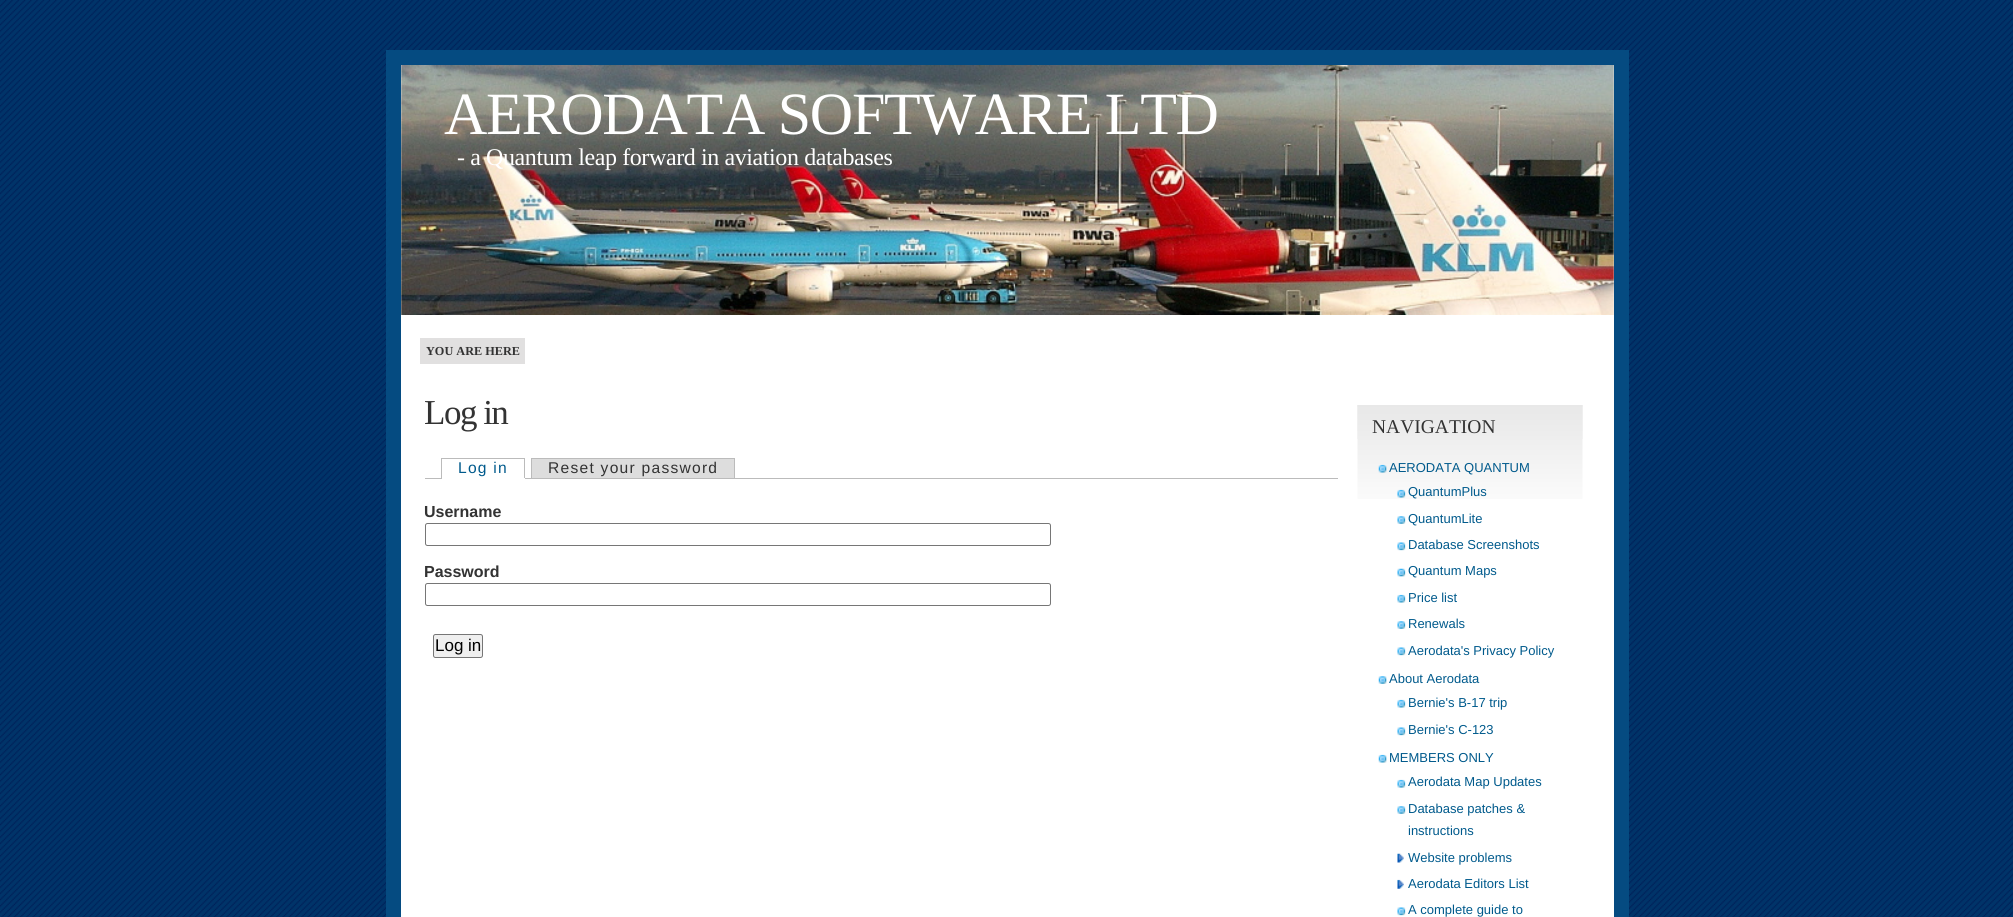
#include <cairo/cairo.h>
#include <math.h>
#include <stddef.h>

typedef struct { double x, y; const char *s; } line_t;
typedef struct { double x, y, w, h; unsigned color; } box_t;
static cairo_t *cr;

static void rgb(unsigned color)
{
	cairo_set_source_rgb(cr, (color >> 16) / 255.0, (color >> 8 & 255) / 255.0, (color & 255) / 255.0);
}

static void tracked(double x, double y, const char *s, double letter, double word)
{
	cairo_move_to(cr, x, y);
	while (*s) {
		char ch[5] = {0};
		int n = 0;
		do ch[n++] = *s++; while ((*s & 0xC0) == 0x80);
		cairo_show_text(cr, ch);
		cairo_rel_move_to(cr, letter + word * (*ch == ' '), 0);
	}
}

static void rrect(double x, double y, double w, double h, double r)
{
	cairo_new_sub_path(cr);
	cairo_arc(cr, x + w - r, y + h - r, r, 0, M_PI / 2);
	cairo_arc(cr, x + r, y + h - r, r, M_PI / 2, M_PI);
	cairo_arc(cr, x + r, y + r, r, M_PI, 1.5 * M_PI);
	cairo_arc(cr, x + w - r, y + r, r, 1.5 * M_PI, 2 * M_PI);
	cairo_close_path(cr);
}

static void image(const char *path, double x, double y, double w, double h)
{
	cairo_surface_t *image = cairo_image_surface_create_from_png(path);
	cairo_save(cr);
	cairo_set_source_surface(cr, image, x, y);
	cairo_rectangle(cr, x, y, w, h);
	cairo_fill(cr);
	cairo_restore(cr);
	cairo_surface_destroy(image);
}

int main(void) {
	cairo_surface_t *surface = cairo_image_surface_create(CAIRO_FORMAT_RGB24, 2013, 917);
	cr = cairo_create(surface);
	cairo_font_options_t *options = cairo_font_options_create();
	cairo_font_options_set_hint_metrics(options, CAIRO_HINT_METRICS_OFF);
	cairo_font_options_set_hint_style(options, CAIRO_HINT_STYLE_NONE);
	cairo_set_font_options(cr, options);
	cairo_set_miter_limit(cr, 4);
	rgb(0xffffff);
	cairo_paint(cr);
	image("img/1.png", 0, 0, 2013, 917);
	rgb(0xffffff);
	cairo_rectangle(cr, 393.5, 57.5, 1228, 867);
	cairo_fill_preserve(cr);
	rgb(0x054b81);
	cairo_set_line_width(cr, 15);
	cairo_stroke(cr);
	image("img/2.png", 401, 65, 1213, 250);
	{
		static const box_t items[] = {
			{420, 338, 105, 26, 0xe1e0e0},
			{425, 478, 913, 1, 0xbbbbbb},
			{441, 458, 84, 1, 0xbbbbbb},
			{524, 458, 1, 21, 0xbbbbbb},
			{441, 478, 84, 1, 0xffffff},
			{441, 458, 1, 21, 0xbbbbbb},
		};
		for (size_t i = 0; i < sizeof items / sizeof *items; i++) {
			rgb(items[i].color);
			cairo_rectangle(cr, items[i].x, items[i].y, items[i].w, items[i].h);
			cairo_fill(cr);
		}
	}
	rgb(0xdddddd);
	cairo_rectangle(cr, 531.5, 458.5, 203, 20);
	cairo_fill_preserve(cr);
	rgb(0xbbbbbb);
	cairo_set_line_width(cr, 1);
	cairo_stroke(cr);
	rrect(425.5, 523.5, 625, 22, 2);
	rgb(0x767676);
	cairo_stroke(cr);
	rrect(425.5, 583.5, 625, 22, 2);
	cairo_stroke(cr);
	rgb(0xefefef);
	rrect(433.5, 634.5, 49, 23, 2);
	cairo_fill_preserve(cr);
	rgb(0x767676);
	cairo_stroke(cr);
	image("img/3.png", 1357, 405, 226, 94);
	image("img/4.png", 1357, 405, 226, 34);
	image("img/5.png", 1378, 464, 9, 9);
	image("img/6.png", 1397, 489, 9, 9);
	image("img/7.png", 1397, 516, 9, 8);
	image("img/8.png", 1397, 542, 9, 9);
	image("img/9.png", 1397, 568, 9, 9);
	image("img/10.png", 1397, 594, 9, 9);
	image("img/7.png", 1397, 621, 9, 8);
	image("img/8.png", 1397, 647, 9, 9);
	image("img/11.png", 1378, 676, 9, 8);
	image("img/10.png", 1397, 699, 9, 9);
	image("img/8.png", 1397, 727, 9, 9);
	image("img/12.png", 1378, 754, 9, 9);
	image("img/13.png", 1397, 779, 9, 9);
	image("img/7.png", 1397, 806, 9, 8);
	image("img/14.png", 1397, 853, 7, 10);
	image("img/15.png", 1397, 879, 7, 10);
	image("img/8.png", 1397, 907, 9, 9);
	cairo_select_font_face(cr, "Liberation Serif", CAIRO_FONT_SLANT_NORMAL, CAIRO_FONT_WEIGHT_NORMAL);
	cairo_set_font_size(cr, 60);
	rgb(0xffffff);
	tracked(444, 134, "AERODATA SOFTWARE LTD", -1.25, 0);
	cairo_set_font_size(cr, 24);
	tracked(457, 165, "- a Quantum leap forward in aviation databases", -0.4, 0);
	cairo_select_font_face(cr, "Liberation Serif", CAIRO_FONT_SLANT_NORMAL, CAIRO_FONT_WEIGHT_BOLD);
	cairo_set_font_size(cr, 12.25);
	rgb(0x333333);
	cairo_move_to(cr, 426, 355);
	cairo_show_text(cr, "YOU ARE HERE");
	cairo_select_font_face(cr, "Liberation Serif", CAIRO_FONT_SLANT_NORMAL, CAIRO_FONT_WEIGHT_NORMAL);
	cairo_set_font_size(cr, 35);
	tracked(424, 424, "Log in", -1.5, 0);
	cairo_select_font_face(cr, "Liberation Sans", CAIRO_FONT_SLANT_NORMAL, CAIRO_FONT_WEIGHT_NORMAL);
	cairo_set_font_size(cr, 15.6);
	rgb(0x005a8c);
	tracked(458, 473, "Log in", 1.25, 0);
	rgb(0x333333);
	tracked(548, 473, "Reset your password", 1.25, 0);
	cairo_select_font_face(cr, "Liberation Sans", CAIRO_FONT_SLANT_NORMAL, CAIRO_FONT_WEIGHT_BOLD);
	cairo_set_font_size(cr, 16);
	cairo_move_to(cr, 424, 517);
	cairo_show_text(cr, "Username");
	cairo_move_to(cr, 424, 577);
	cairo_show_text(cr, "Password");
	cairo_select_font_face(cr, "Liberation Sans", CAIRO_FONT_SLANT_NORMAL, CAIRO_FONT_WEIGHT_NORMAL);
	cairo_set_font_size(cr, 17);
	rgb(0x000000);
	cairo_move_to(cr, 435, 651);
	cairo_show_text(cr, "Log in");
	cairo_select_font_face(cr, "Liberation Serif", CAIRO_FONT_SLANT_NORMAL, CAIRO_FONT_WEIGHT_NORMAL);
	cairo_set_font_size(cr, 19.5);
	rgb(0x333333);
	cairo_move_to(cr, 1372, 433);
	cairo_show_text(cr, "NAVIGATION");
	cairo_select_font_face(cr, "Liberation Sans", CAIRO_FONT_SLANT_NORMAL, CAIRO_FONT_WEIGHT_NORMAL);
	cairo_set_font_size(cr, 13);
	rgb(0x005a8c);
	{
		static const line_t items[] = {
			{1389, 472, "AERODATA QUANTUM"},
			{1408, 496, "QuantumPlus"},
			{1408, 523, "QuantumLite"},
			{1408, 549, "Database Screenshots"},
			{1408, 575, "Quantum Maps"},
			{1408, 602, "Price list"},
			{1408, 628, "Renewals"},
			{1408, 655, "Aerodata's Privacy Policy"},
			{1389, 683, "About Aerodata"},
			{1408, 707, "Bernie's B-17 trip"},
			{1408, 734, "Bernie's C-123"},
			{1389, 762, "MEMBERS ONLY"},
			{1408, 786, "Aerodata Map Updates"},
			{1408, 813, "Database patches &"},
			{1408, 835, "instructions"},
			{1408, 862, "Website problems"},
			{1408, 888, "Aerodata Editors List"},
			{1408, 914, "A complete guide to"},
		};
		for (size_t i = 0; i < sizeof items / sizeof *items; i++) {
			cairo_move_to(cr, items[i].x, items[i].y);
			cairo_show_text(cr, items[i].s);
		}
	}
	cairo_surface_write_to_png(surface, "page.png");
	cairo_font_options_destroy(options);
	cairo_destroy(cr);
	cairo_surface_destroy(surface);
	return 0;
}
